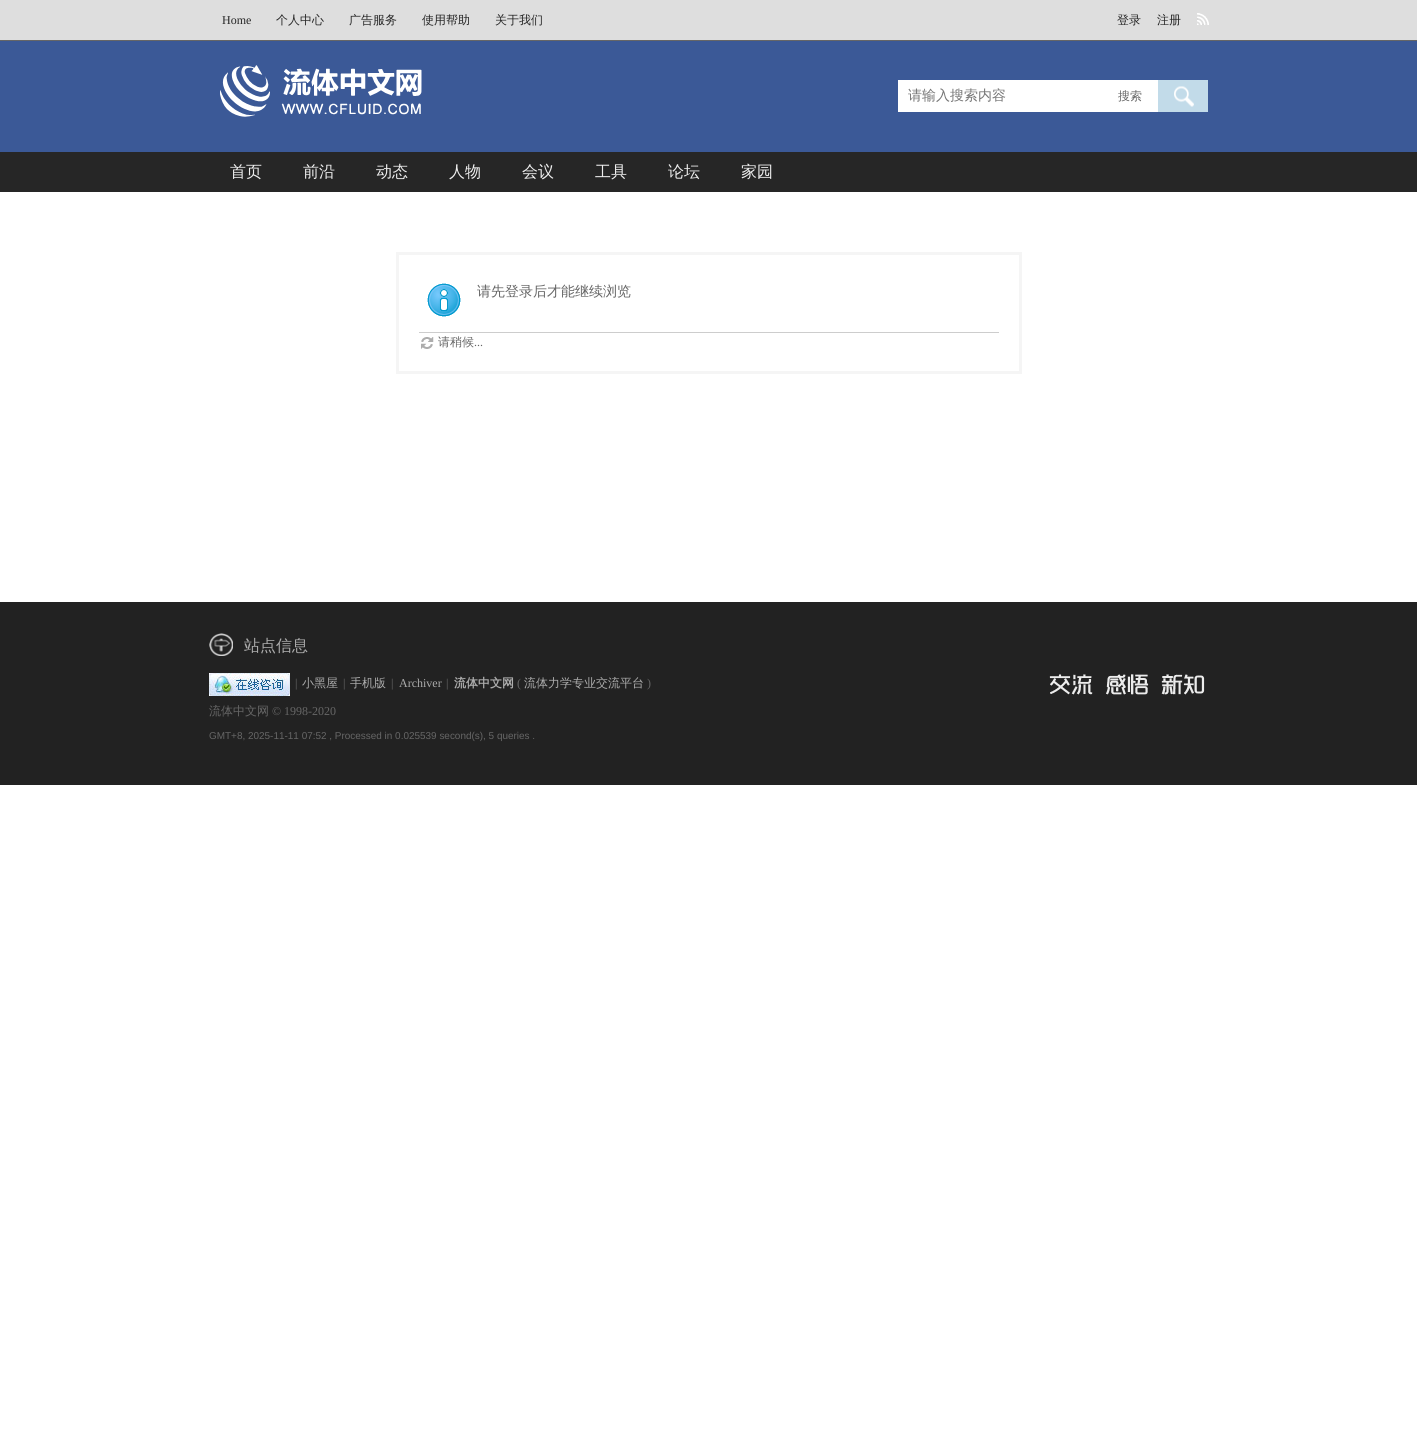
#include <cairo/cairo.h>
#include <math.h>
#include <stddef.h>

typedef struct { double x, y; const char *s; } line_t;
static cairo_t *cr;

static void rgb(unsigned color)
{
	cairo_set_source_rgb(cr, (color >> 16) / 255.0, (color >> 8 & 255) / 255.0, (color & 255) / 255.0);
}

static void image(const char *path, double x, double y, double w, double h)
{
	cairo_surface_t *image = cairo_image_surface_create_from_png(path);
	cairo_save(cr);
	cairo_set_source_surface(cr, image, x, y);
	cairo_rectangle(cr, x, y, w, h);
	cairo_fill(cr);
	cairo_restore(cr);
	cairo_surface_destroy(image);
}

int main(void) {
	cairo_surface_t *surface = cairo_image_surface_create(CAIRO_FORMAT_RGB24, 1417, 1449);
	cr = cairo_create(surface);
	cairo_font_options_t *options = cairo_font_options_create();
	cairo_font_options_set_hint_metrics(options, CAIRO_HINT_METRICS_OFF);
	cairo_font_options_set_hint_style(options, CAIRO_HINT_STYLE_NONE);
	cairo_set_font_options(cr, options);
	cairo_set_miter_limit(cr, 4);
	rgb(0xffffff);
	cairo_paint(cr);
	rgb(0xdedede);
	cairo_rectangle(cr, 0, 0, 1417, 40);
	cairo_fill(cr);
	rgb(0x666666);
	cairo_rectangle(cr, 0, 40, 1417, 1);
	cairo_fill(cr);
	image("img/1.png", 1197, 13, 12, 12);
	rgb(0x3b5997);
	cairo_rectangle(cr, 0, 41, 1417, 111);
	cairo_fill(cr);
	image("img/2.png", 220, 65, 202, 52);
	rgb(0xffffff);
	cairo_rectangle(cr, 898, 80, 260, 32);
	cairo_fill(cr);
	rgb(0xc2dbe9);
	cairo_rectangle(cr, 1158, 80, 50, 32);
	cairo_fill(cr);
	image("img/3.png", 1174, 86, 20, 21);
	rgb(0x262626);
	cairo_rectangle(cr, 0, 152, 1417, 40);
	cairo_fill(cr);
	cairo_rectangle(cr, 397.5, 253.5, 623, 119);
	rgb(0xf5f5f5);
	cairo_set_line_width(cr, 3);
	cairo_stroke(cr);
	image("img/4.png", 427, 283, 34, 34);
	rgb(0xcdcdcd);
	cairo_rectangle(cr, 419, 332, 580, 1);
	cairo_fill(cr);
	image("img/5.png", 421, 337, 13, 12);
	rgb(0x222222);
	cairo_rectangle(cr, 0, 602, 1417, 183);
	cairo_fill(cr);
	image("img/6.png", 209, 633, 24, 23);
	image("img/7.png", 209, 673, 81, 23);
	image("img/8.png", 1049, 674, 156, 21);
	cairo_select_font_face(cr, "Liberation Serif", CAIRO_FONT_SLANT_NORMAL, CAIRO_FONT_WEIGHT_NORMAL);
	cairo_set_font_size(cr, 12);
	rgb(0x262626);
	cairo_move_to(cr, 222, 24);
	cairo_show_text(cr, "Home");
	cairo_select_font_face(cr, "WenQuanYi Zen Hei Medium", CAIRO_FONT_SLANT_NORMAL, CAIRO_FONT_WEIGHT_NORMAL);
	{
		static const line_t items[] = {
			{276, 24, "个人中心"},
			{349, 24, "广告服务"},
			{422, 24, "使用帮助"},
			{495, 24, "关于我们"},
			{1117, 24, "登录"},
			{1157, 24, "注册"},
		};
		for (size_t i = 0; i < sizeof items / sizeof *items; i++) {
			cairo_move_to(cr, items[i].x, items[i].y);
			cairo_show_text(cr, items[i].s);
		}
	}
	cairo_set_font_size(cr, 14);
	rgb(0x757575);
	cairo_move_to(cr, 908, 100);
	cairo_show_text(cr, "请输入搜索内容");
	cairo_set_font_size(cr, 12);
	rgb(0x666666);
	cairo_move_to(cr, 1118, 100);
	cairo_show_text(cr, "搜索");
	cairo_set_font_size(cr, 16);
	rgb(0xeeeeee);
	{
		static const line_t items[] = {
			{230, 177, "首页"},
			{303, 177, "前沿"},
			{376, 177, "动态"},
			{449, 177, "人物"},
			{522, 177, "会议"},
			{595, 177, "工具"},
			{668, 177, "论坛"},
			{741, 177, "家园"},
		};
		for (size_t i = 0; i < sizeof items / sizeof *items; i++) {
			cairo_move_to(cr, items[i].x, items[i].y);
			cairo_show_text(cr, items[i].s);
		}
	}
	cairo_set_font_size(cr, 14);
	rgb(0x666666);
	cairo_move_to(cr, 477, 296);
	cairo_show_text(cr, "请先登录后才能继续浏览");
	cairo_set_font_size(cr, 12);
	cairo_move_to(cr, 438, 346);
	cairo_show_text(cr, "请稍候");
	cairo_select_font_face(cr, "Liberation Serif", CAIRO_FONT_SLANT_NORMAL, CAIRO_FONT_WEIGHT_NORMAL);
	cairo_move_to(cr, 474, 346);
	cairo_show_text(cr, "...");
	cairo_select_font_face(cr, "WenQuanYi Zen Hei Medium", CAIRO_FONT_SLANT_NORMAL, CAIRO_FONT_WEIGHT_NORMAL);
	cairo_set_font_size(cr, 16);
	rgb(0xacacac);
	cairo_move_to(cr, 244, 651);
	cairo_show_text(cr, "站点信息");
	cairo_select_font_face(cr, "Liberation Serif", CAIRO_FONT_SLANT_NORMAL, CAIRO_FONT_WEIGHT_NORMAL);
	cairo_set_font_size(cr, 12);
	rgb(0x666666);
	cairo_move_to(cr, 295, 687);
	cairo_show_text(cr, "|");
	cairo_select_font_face(cr, "WenQuanYi Zen Hei Medium", CAIRO_FONT_SLANT_NORMAL, CAIRO_FONT_WEIGHT_NORMAL);
	rgb(0xacacac);
	cairo_move_to(cr, 302, 687);
	cairo_show_text(cr, "小黑屋");
	cairo_select_font_face(cr, "Liberation Serif", CAIRO_FONT_SLANT_NORMAL, CAIRO_FONT_WEIGHT_NORMAL);
	rgb(0x666666);
	cairo_move_to(cr, 343, 687);
	cairo_show_text(cr, "|");
	cairo_select_font_face(cr, "WenQuanYi Zen Hei Medium", CAIRO_FONT_SLANT_NORMAL, CAIRO_FONT_WEIGHT_NORMAL);
	rgb(0xacacac);
	cairo_move_to(cr, 350, 687);
	cairo_show_text(cr, "手机版");
	cairo_select_font_face(cr, "Liberation Serif", CAIRO_FONT_SLANT_NORMAL, CAIRO_FONT_WEIGHT_NORMAL);
	rgb(0x666666);
	cairo_move_to(cr, 391, 687);
	cairo_show_text(cr, "|");
	rgb(0xacacac);
	cairo_move_to(cr, 399, 687);
	cairo_show_text(cr, "Archiver");
	rgb(0x666666);
	cairo_move_to(cr, 446, 687);
	cairo_show_text(cr, "|");
	cairo_select_font_face(cr, "WenQuanYi Zen Hei", CAIRO_FONT_SLANT_NORMAL, CAIRO_FONT_WEIGHT_BOLD);
	rgb(0xacacac);
	cairo_move_to(cr, 454, 687);
	cairo_show_text(cr, "流体中文网");
	cairo_select_font_face(cr, "Liberation Serif", CAIRO_FONT_SLANT_NORMAL, CAIRO_FONT_WEIGHT_NORMAL);
	rgb(0x666666);
	cairo_move_to(cr, 517, 687);
	cairo_show_text(cr, "(");
	cairo_select_font_face(cr, "WenQuanYi Zen Hei Medium", CAIRO_FONT_SLANT_NORMAL, CAIRO_FONT_WEIGHT_NORMAL);
	rgb(0xacacac);
	cairo_move_to(cr, 524, 687);
	cairo_show_text(cr, "流体力学专业交流平台");
	cairo_select_font_face(cr, "Liberation Serif", CAIRO_FONT_SLANT_NORMAL, CAIRO_FONT_WEIGHT_NORMAL);
	rgb(0x666666);
	cairo_move_to(cr, 647, 687);
	cairo_show_text(cr, ")");
	cairo_select_font_face(cr, "WenQuanYi Zen Hei Medium", CAIRO_FONT_SLANT_NORMAL, CAIRO_FONT_WEIGHT_NORMAL);
	cairo_move_to(cr, 209, 715);
	cairo_show_text(cr, "流体中文网");
	cairo_select_font_face(cr, "Liberation Serif", CAIRO_FONT_SLANT_NORMAL, CAIRO_FONT_WEIGHT_NORMAL);
	cairo_move_to(cr, 272, 715);
	cairo_show_text(cr, "© 1998-2020");
	cairo_select_font_face(cr, "Liberation Sans", CAIRO_FONT_SLANT_NORMAL, CAIRO_FONT_WEIGHT_NORMAL);
	cairo_set_font_size(cr, 9.95);
	cairo_move_to(cr, 209, 739);
	cairo_show_text(cr, "GMT+8, 2025-11-11 07:52 , Processed in 0.025539 second(s), 5 queries .");
	cairo_surface_write_to_png(surface, "page.png");
	cairo_font_options_destroy(options);
	cairo_destroy(cr);
	cairo_surface_destroy(surface);
	return 0;
}
